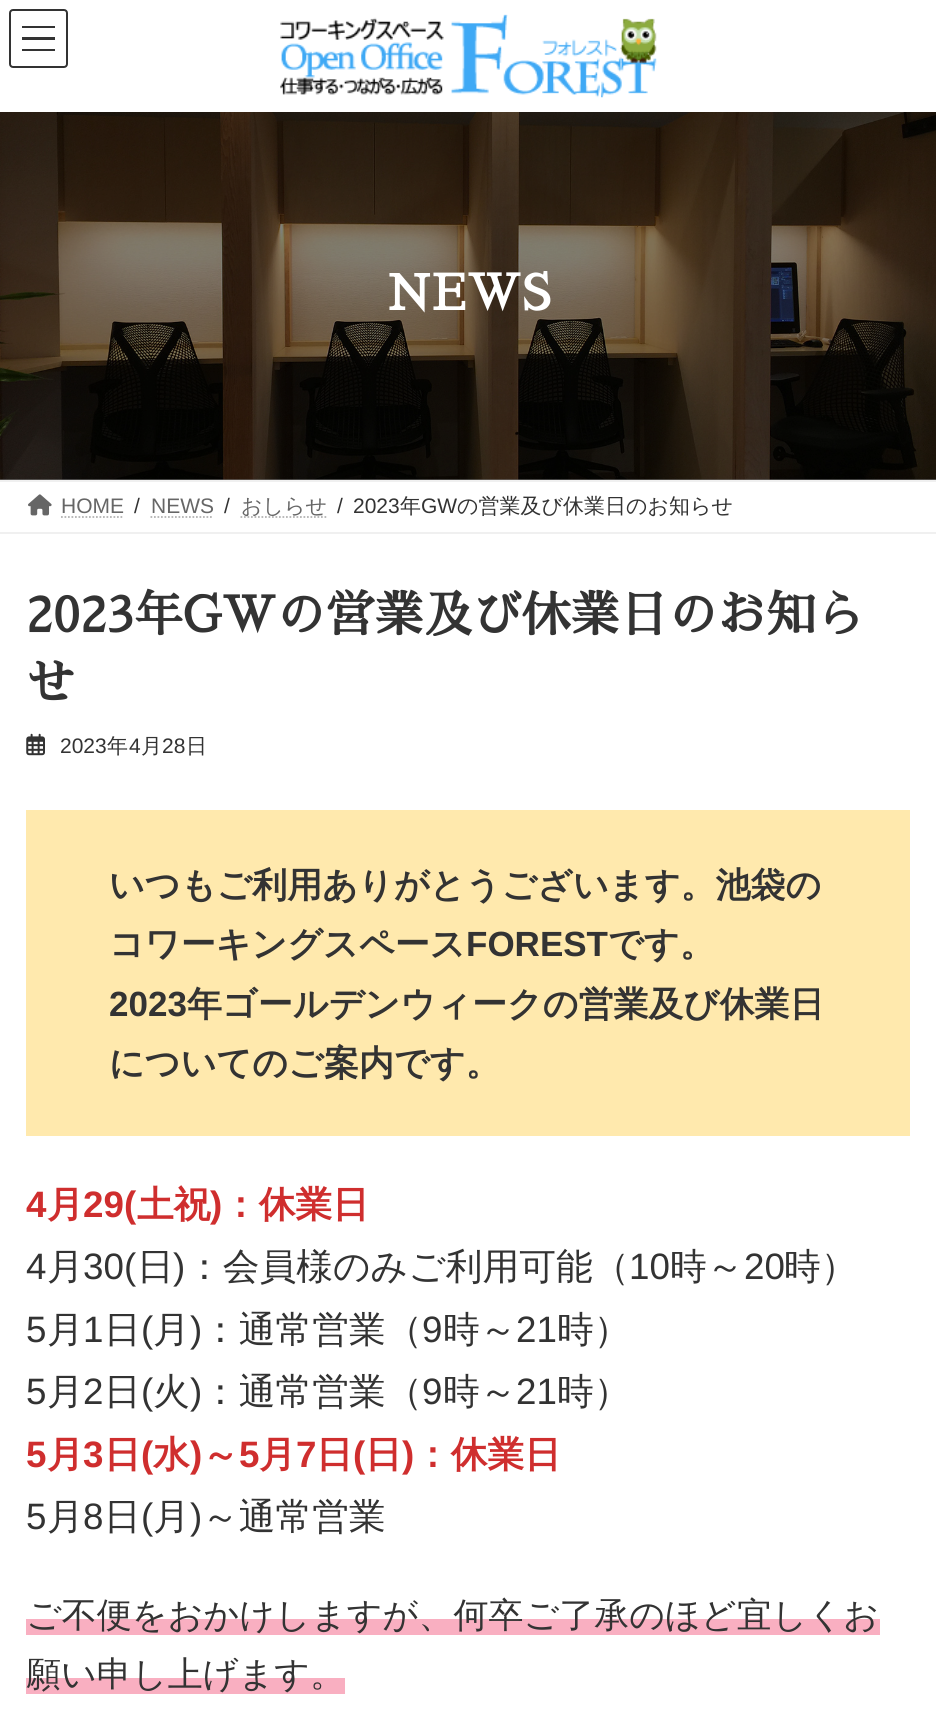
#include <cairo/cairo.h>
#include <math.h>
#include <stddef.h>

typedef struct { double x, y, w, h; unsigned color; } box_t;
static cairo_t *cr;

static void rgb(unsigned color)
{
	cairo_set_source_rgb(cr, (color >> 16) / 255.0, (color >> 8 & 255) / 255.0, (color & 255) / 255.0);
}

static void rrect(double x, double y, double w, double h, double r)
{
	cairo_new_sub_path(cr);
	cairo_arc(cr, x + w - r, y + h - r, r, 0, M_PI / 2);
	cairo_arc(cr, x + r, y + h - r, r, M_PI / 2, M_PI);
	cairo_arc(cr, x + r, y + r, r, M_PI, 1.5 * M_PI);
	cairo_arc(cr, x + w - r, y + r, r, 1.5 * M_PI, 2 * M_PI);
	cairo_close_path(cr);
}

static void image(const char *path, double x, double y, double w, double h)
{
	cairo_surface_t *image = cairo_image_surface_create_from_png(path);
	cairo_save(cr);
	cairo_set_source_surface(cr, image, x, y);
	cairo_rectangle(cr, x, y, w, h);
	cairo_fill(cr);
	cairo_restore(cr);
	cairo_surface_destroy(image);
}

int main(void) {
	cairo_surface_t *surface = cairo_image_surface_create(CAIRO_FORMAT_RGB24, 936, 1718);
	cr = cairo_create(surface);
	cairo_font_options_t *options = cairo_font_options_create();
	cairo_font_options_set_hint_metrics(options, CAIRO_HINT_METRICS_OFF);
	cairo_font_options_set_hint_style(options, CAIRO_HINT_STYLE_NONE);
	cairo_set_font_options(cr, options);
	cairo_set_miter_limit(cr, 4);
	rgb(0xffffff);
	cairo_paint(cr);
	{
		static const box_t items[] = {
			{0, 479, 936, 1, 0x808080},
			{22, 26, 33, 2, 0x333333},
			{22, 37, 33, 3, 0x333333},
			{22, 49, 33, 2, 0x333333},
		};
		for (size_t i = 0; i < sizeof items / sizeof *items; i++) {
			rgb(items[i].color);
			cairo_rectangle(cr, items[i].x, items[i].y, items[i].w, items[i].h);
			cairo_fill(cr);
		}
	}
	rrect(10, 10, 57, 57, 3);
	cairo_stroke(cr);
	image("img/1.png", 280, 14, 377, 84);
	image("img/2.png", 0, 112, 936, 368);
	rgb(0xf0f0f0);
	cairo_rectangle(cr, 0, 480, 936, 2);
	cairo_fill(cr);
	cairo_rectangle(cr, 0, 532, 936, 2);
	cairo_fill(cr);
	image("img/3.png", 28, 494, 24, 22);
	cairo_new_path(cr);
	cairo_move_to(cr, 61, 517);
	cairo_line_to(cr, 124, 517);
	rgb(0xb3b3b3);
	cairo_set_line_width(cr, 1.8);
	cairo_set_dash(cr, (double[]){1.75, 1.75}, 2, 0);
	cairo_stroke(cr);
	cairo_new_path(cr);
	cairo_move_to(cr, 150.5, 517);
	cairo_line_to(cr, 213.5, 517);
	cairo_stroke(cr);
	cairo_new_path(cr);
	cairo_move_to(cr, 240.5, 517);
	cairo_line_to(cr, 326.5, 517);
	cairo_stroke(cr);
	image("img/4.png", 26, 733, 19, 23);
	{
		static const box_t items[] = {
			{26, 810, 884, 326, 0xffe9ad},
			{26, 1619, 854, 16, 0xf9afc1},
			{26, 1678, 319, 16, 0xf9afc1},
		};
		for (size_t i = 0; i < sizeof items / sizeof *items; i++) {
			rgb(items[i].color);
			cairo_rectangle(cr, items[i].x, items[i].y, items[i].w, items[i].h);
			cairo_fill(cr);
		}
	}
	cairo_select_font_face(cr, "Sawarabi Mincho", CAIRO_FONT_SLANT_NORMAL, CAIRO_FONT_WEIGHT_BOLD);
	cairo_set_font_size(cr, 49);
	rgb(0xffffff);
	cairo_move_to(cr, 386, 310);
	cairo_show_text(cr, "NEWS");
	cairo_select_font_face(cr, "Liberation Sans", CAIRO_FONT_SLANT_NORMAL, CAIRO_FONT_WEIGHT_NORMAL);
	cairo_set_font_size(cr, 21);
	rgb(0x666666);
	cairo_move_to(cr, 61, 513);
	cairo_show_text(cr, "HOME");
	rgb(0x333333);
	cairo_move_to(cr, 134, 513);
	cairo_show_text(cr, "/");
	rgb(0x666666);
	cairo_move_to(cr, 151, 513);
	cairo_show_text(cr, "NEWS");
	rgb(0x333333);
	cairo_move_to(cr, 224, 513);
	cairo_show_text(cr, "/");
	cairo_select_font_face(cr, "WenQuanYi Zen Hei Medium", CAIRO_FONT_SLANT_NORMAL, CAIRO_FONT_WEIGHT_NORMAL);
	rgb(0x666666);
	cairo_move_to(cr, 241, 513);
	cairo_show_text(cr, "おしらせ");
	cairo_select_font_face(cr, "Liberation Sans", CAIRO_FONT_SLANT_NORMAL, CAIRO_FONT_WEIGHT_NORMAL);
	rgb(0x333333);
	cairo_move_to(cr, 337, 513);
	cairo_show_text(cr, "/");
	cairo_move_to(cr, 353, 513);
	cairo_show_text(cr, "2023");
	cairo_select_font_face(cr, "WenQuanYi Zen Hei Medium", CAIRO_FONT_SLANT_NORMAL, CAIRO_FONT_WEIGHT_NORMAL);
	cairo_move_to(cr, 400, 513);
	cairo_show_text(cr, "年");
	cairo_select_font_face(cr, "Liberation Sans", CAIRO_FONT_SLANT_NORMAL, CAIRO_FONT_WEIGHT_NORMAL);
	cairo_move_to(cr, 421, 513);
	cairo_show_text(cr, "GW");
	cairo_select_font_face(cr, "WenQuanYi Zen Hei Medium", CAIRO_FONT_SLANT_NORMAL, CAIRO_FONT_WEIGHT_NORMAL);
	cairo_move_to(cr, 457, 513);
	cairo_show_text(cr, "の営業及び休業日のお知らせ");
	cairo_select_font_face(cr, "Sawarabi Mincho", CAIRO_FONT_SLANT_NORMAL, CAIRO_FONT_WEIGHT_BOLD);
	cairo_set_font_size(cr, 49);
	cairo_move_to(cr, 26, 632);
	cairo_show_text(cr, "2023年GWの営業及び休業日のお知ら");
	cairo_move_to(cr, 26, 700);
	cairo_show_text(cr, "せ");
	cairo_select_font_face(cr, "Liberation Sans", CAIRO_FONT_SLANT_NORMAL, CAIRO_FONT_WEIGHT_NORMAL);
	cairo_set_font_size(cr, 21);
	cairo_move_to(cr, 60, 753);
	cairo_show_text(cr, "2023");
	cairo_select_font_face(cr, "WenQuanYi Zen Hei Medium", CAIRO_FONT_SLANT_NORMAL, CAIRO_FONT_WEIGHT_NORMAL);
	cairo_move_to(cr, 107, 753);
	cairo_show_text(cr, "年");
	cairo_select_font_face(cr, "Liberation Sans", CAIRO_FONT_SLANT_NORMAL, CAIRO_FONT_WEIGHT_NORMAL);
	cairo_move_to(cr, 129, 753);
	cairo_show_text(cr, "4");
	cairo_select_font_face(cr, "WenQuanYi Zen Hei Medium", CAIRO_FONT_SLANT_NORMAL, CAIRO_FONT_WEIGHT_NORMAL);
	cairo_move_to(cr, 141, 753);
	cairo_show_text(cr, "月");
	cairo_select_font_face(cr, "Liberation Sans", CAIRO_FONT_SLANT_NORMAL, CAIRO_FONT_WEIGHT_NORMAL);
	cairo_move_to(cr, 162, 753);
	cairo_show_text(cr, "28");
	cairo_select_font_face(cr, "WenQuanYi Zen Hei Medium", CAIRO_FONT_SLANT_NORMAL, CAIRO_FONT_WEIGHT_NORMAL);
	cairo_move_to(cr, 186, 753);
	cairo_show_text(cr, "日");
	cairo_select_font_face(cr, "WenQuanYi Zen Hei", CAIRO_FONT_SLANT_NORMAL, CAIRO_FONT_WEIGHT_BOLD);
	cairo_set_font_size(cr, 35);
	cairo_move_to(cr, 109, 897);
	cairo_show_text(cr, "いつもご利用ありがとうございます。池袋の");
	cairo_move_to(cr, 109, 956);
	cairo_show_text(cr, "コワーキングスペース");
	cairo_select_font_face(cr, "Liberation Sans", CAIRO_FONT_SLANT_NORMAL, CAIRO_FONT_WEIGHT_BOLD);
	cairo_move_to(cr, 466, 956);
	cairo_show_text(cr, "FOREST");
	cairo_select_font_face(cr, "WenQuanYi Zen Hei", CAIRO_FONT_SLANT_NORMAL, CAIRO_FONT_WEIGHT_BOLD);
	cairo_move_to(cr, 608, 956);
	cairo_show_text(cr, "です。");
	cairo_select_font_face(cr, "Liberation Sans", CAIRO_FONT_SLANT_NORMAL, CAIRO_FONT_WEIGHT_BOLD);
	cairo_move_to(cr, 109, 1016);
	cairo_show_text(cr, "2023");
	cairo_select_font_face(cr, "WenQuanYi Zen Hei", CAIRO_FONT_SLANT_NORMAL, CAIRO_FONT_WEIGHT_BOLD);
	cairo_move_to(cr, 187, 1016);
	cairo_show_text(cr, "年ゴールデンウィークの営業及び休業日");
	cairo_move_to(cr, 109, 1075);
	cairo_show_text(cr, "についてのご案内です。");
	cairo_select_font_face(cr, "Liberation Sans", CAIRO_FONT_SLANT_NORMAL, CAIRO_FONT_WEIGHT_BOLD);
	cairo_set_font_size(cr, 36.75);
	rgb(0xcf2e2e);
	cairo_move_to(cr, 26, 1217);
	cairo_show_text(cr, "4");
	cairo_select_font_face(cr, "WenQuanYi Zen Hei", CAIRO_FONT_SLANT_NORMAL, CAIRO_FONT_WEIGHT_BOLD);
	cairo_move_to(cr, 47, 1217);
	cairo_show_text(cr, "月");
	cairo_select_font_face(cr, "Liberation Sans", CAIRO_FONT_SLANT_NORMAL, CAIRO_FONT_WEIGHT_BOLD);
	cairo_move_to(cr, 83, 1217);
	cairo_show_text(cr, "29(");
	cairo_select_font_face(cr, "WenQuanYi Zen Hei", CAIRO_FONT_SLANT_NORMAL, CAIRO_FONT_WEIGHT_BOLD);
	cairo_move_to(cr, 137, 1217);
	cairo_show_text(cr, "土祝");
	cairo_select_font_face(cr, "Liberation Sans", CAIRO_FONT_SLANT_NORMAL, CAIRO_FONT_WEIGHT_BOLD);
	cairo_move_to(cr, 210, 1217);
	cairo_show_text(cr, ")");
	cairo_select_font_face(cr, "WenQuanYi Zen Hei", CAIRO_FONT_SLANT_NORMAL, CAIRO_FONT_WEIGHT_BOLD);
	cairo_move_to(cr, 222, 1217);
	cairo_show_text(cr, "：休業日");
	cairo_select_font_face(cr, "Liberation Sans", CAIRO_FONT_SLANT_NORMAL, CAIRO_FONT_WEIGHT_NORMAL);
	rgb(0x333333);
	cairo_move_to(cr, 26, 1279);
	cairo_show_text(cr, "4");
	cairo_select_font_face(cr, "WenQuanYi Zen Hei Medium", CAIRO_FONT_SLANT_NORMAL, CAIRO_FONT_WEIGHT_NORMAL);
	cairo_move_to(cr, 47, 1279);
	cairo_show_text(cr, "月");
	cairo_select_font_face(cr, "Liberation Sans", CAIRO_FONT_SLANT_NORMAL, CAIRO_FONT_WEIGHT_NORMAL);
	cairo_move_to(cr, 83, 1279);
	cairo_show_text(cr, "30(");
	cairo_select_font_face(cr, "WenQuanYi Zen Hei Medium", CAIRO_FONT_SLANT_NORMAL, CAIRO_FONT_WEIGHT_NORMAL);
	cairo_move_to(cr, 137, 1279);
	cairo_show_text(cr, "日");
	cairo_select_font_face(cr, "Liberation Sans", CAIRO_FONT_SLANT_NORMAL, CAIRO_FONT_WEIGHT_NORMAL);
	cairo_move_to(cr, 173, 1279);
	cairo_show_text(cr, ")");
	cairo_select_font_face(cr, "WenQuanYi Zen Hei Medium", CAIRO_FONT_SLANT_NORMAL, CAIRO_FONT_WEIGHT_NORMAL);
	cairo_move_to(cr, 186, 1279);
	cairo_show_text(cr, "：会員様のみご利用可能（");
	cairo_select_font_face(cr, "Liberation Sans", CAIRO_FONT_SLANT_NORMAL, CAIRO_FONT_WEIGHT_NORMAL);
	cairo_move_to(cr, 629, 1279);
	cairo_show_text(cr, "10");
	cairo_select_font_face(cr, "WenQuanYi Zen Hei Medium", CAIRO_FONT_SLANT_NORMAL, CAIRO_FONT_WEIGHT_NORMAL);
	cairo_move_to(cr, 670, 1279);
	cairo_show_text(cr, "時～");
	cairo_select_font_face(cr, "Liberation Sans", CAIRO_FONT_SLANT_NORMAL, CAIRO_FONT_WEIGHT_NORMAL);
	cairo_move_to(cr, 744, 1279);
	cairo_show_text(cr, "20");
	cairo_select_font_face(cr, "WenQuanYi Zen Hei Medium", CAIRO_FONT_SLANT_NORMAL, CAIRO_FONT_WEIGHT_NORMAL);
	cairo_move_to(cr, 784, 1279);
	cairo_show_text(cr, "時）");
	cairo_select_font_face(cr, "Liberation Sans", CAIRO_FONT_SLANT_NORMAL, CAIRO_FONT_WEIGHT_NORMAL);
	cairo_move_to(cr, 26, 1342);
	cairo_show_text(cr, "5");
	cairo_select_font_face(cr, "WenQuanYi Zen Hei Medium", CAIRO_FONT_SLANT_NORMAL, CAIRO_FONT_WEIGHT_NORMAL);
	cairo_move_to(cr, 47, 1342);
	cairo_show_text(cr, "月");
	cairo_select_font_face(cr, "Liberation Sans", CAIRO_FONT_SLANT_NORMAL, CAIRO_FONT_WEIGHT_NORMAL);
	cairo_move_to(cr, 83, 1342);
	cairo_show_text(cr, "1");
	cairo_select_font_face(cr, "WenQuanYi Zen Hei Medium", CAIRO_FONT_SLANT_NORMAL, CAIRO_FONT_WEIGHT_NORMAL);
	cairo_move_to(cr, 104, 1342);
	cairo_show_text(cr, "日");
	cairo_select_font_face(cr, "Liberation Sans", CAIRO_FONT_SLANT_NORMAL, CAIRO_FONT_WEIGHT_NORMAL);
	cairo_move_to(cr, 141, 1342);
	cairo_show_text(cr, "(");
	cairo_select_font_face(cr, "WenQuanYi Zen Hei Medium", CAIRO_FONT_SLANT_NORMAL, CAIRO_FONT_WEIGHT_NORMAL);
	cairo_move_to(cr, 153, 1342);
	cairo_show_text(cr, "月");
	cairo_select_font_face(cr, "Liberation Sans", CAIRO_FONT_SLANT_NORMAL, CAIRO_FONT_WEIGHT_NORMAL);
	cairo_move_to(cr, 190, 1342);
	cairo_show_text(cr, ")");
	cairo_select_font_face(cr, "WenQuanYi Zen Hei Medium", CAIRO_FONT_SLANT_NORMAL, CAIRO_FONT_WEIGHT_NORMAL);
	cairo_move_to(cr, 202, 1342);
	cairo_show_text(cr, "：通常営業（");
	cairo_select_font_face(cr, "Liberation Sans", CAIRO_FONT_SLANT_NORMAL, CAIRO_FONT_WEIGHT_NORMAL);
	cairo_move_to(cr, 422, 1342);
	cairo_show_text(cr, "9");
	cairo_select_font_face(cr, "WenQuanYi Zen Hei Medium", CAIRO_FONT_SLANT_NORMAL, CAIRO_FONT_WEIGHT_NORMAL);
	cairo_move_to(cr, 443, 1342);
	cairo_show_text(cr, "時～");
	cairo_select_font_face(cr, "Liberation Sans", CAIRO_FONT_SLANT_NORMAL, CAIRO_FONT_WEIGHT_NORMAL);
	cairo_move_to(cr, 516, 1342);
	cairo_show_text(cr, "21");
	cairo_select_font_face(cr, "WenQuanYi Zen Hei Medium", CAIRO_FONT_SLANT_NORMAL, CAIRO_FONT_WEIGHT_NORMAL);
	cairo_move_to(cr, 557, 1342);
	cairo_show_text(cr, "時）");
	cairo_select_font_face(cr, "Liberation Sans", CAIRO_FONT_SLANT_NORMAL, CAIRO_FONT_WEIGHT_NORMAL);
	cairo_move_to(cr, 26, 1404);
	cairo_show_text(cr, "5");
	cairo_select_font_face(cr, "WenQuanYi Zen Hei Medium", CAIRO_FONT_SLANT_NORMAL, CAIRO_FONT_WEIGHT_NORMAL);
	cairo_move_to(cr, 47, 1404);
	cairo_show_text(cr, "月");
	cairo_select_font_face(cr, "Liberation Sans", CAIRO_FONT_SLANT_NORMAL, CAIRO_FONT_WEIGHT_NORMAL);
	cairo_move_to(cr, 83, 1404);
	cairo_show_text(cr, "2");
	cairo_select_font_face(cr, "WenQuanYi Zen Hei Medium", CAIRO_FONT_SLANT_NORMAL, CAIRO_FONT_WEIGHT_NORMAL);
	cairo_move_to(cr, 104, 1404);
	cairo_show_text(cr, "日");
	cairo_select_font_face(cr, "Liberation Sans", CAIRO_FONT_SLANT_NORMAL, CAIRO_FONT_WEIGHT_NORMAL);
	cairo_move_to(cr, 141, 1404);
	cairo_show_text(cr, "(");
	cairo_select_font_face(cr, "WenQuanYi Zen Hei Medium", CAIRO_FONT_SLANT_NORMAL, CAIRO_FONT_WEIGHT_NORMAL);
	cairo_move_to(cr, 153, 1404);
	cairo_show_text(cr, "火");
	cairo_select_font_face(cr, "Liberation Sans", CAIRO_FONT_SLANT_NORMAL, CAIRO_FONT_WEIGHT_NORMAL);
	cairo_move_to(cr, 190, 1404);
	cairo_show_text(cr, ")");
	cairo_select_font_face(cr, "WenQuanYi Zen Hei Medium", CAIRO_FONT_SLANT_NORMAL, CAIRO_FONT_WEIGHT_NORMAL);
	cairo_move_to(cr, 202, 1404);
	cairo_show_text(cr, "：通常営業（");
	cairo_select_font_face(cr, "Liberation Sans", CAIRO_FONT_SLANT_NORMAL, CAIRO_FONT_WEIGHT_NORMAL);
	cairo_move_to(cr, 422, 1404);
	cairo_show_text(cr, "9");
	cairo_select_font_face(cr, "WenQuanYi Zen Hei Medium", CAIRO_FONT_SLANT_NORMAL, CAIRO_FONT_WEIGHT_NORMAL);
	cairo_move_to(cr, 443, 1404);
	cairo_show_text(cr, "時～");
	cairo_select_font_face(cr, "Liberation Sans", CAIRO_FONT_SLANT_NORMAL, CAIRO_FONT_WEIGHT_NORMAL);
	cairo_move_to(cr, 516, 1404);
	cairo_show_text(cr, "21");
	cairo_select_font_face(cr, "WenQuanYi Zen Hei Medium", CAIRO_FONT_SLANT_NORMAL, CAIRO_FONT_WEIGHT_NORMAL);
	cairo_move_to(cr, 557, 1404);
	cairo_show_text(cr, "時）");
	cairo_select_font_face(cr, "Liberation Sans", CAIRO_FONT_SLANT_NORMAL, CAIRO_FONT_WEIGHT_BOLD);
	rgb(0xcf2e2e);
	cairo_move_to(cr, 26, 1467);
	cairo_show_text(cr, "5");
	cairo_select_font_face(cr, "WenQuanYi Zen Hei", CAIRO_FONT_SLANT_NORMAL, CAIRO_FONT_WEIGHT_BOLD);
	cairo_move_to(cr, 47, 1467);
	cairo_show_text(cr, "月");
	cairo_select_font_face(cr, "Liberation Sans", CAIRO_FONT_SLANT_NORMAL, CAIRO_FONT_WEIGHT_BOLD);
	cairo_move_to(cr, 83, 1467);
	cairo_show_text(cr, "3");
	cairo_select_font_face(cr, "WenQuanYi Zen Hei", CAIRO_FONT_SLANT_NORMAL, CAIRO_FONT_WEIGHT_BOLD);
	cairo_move_to(cr, 104, 1467);
	cairo_show_text(cr, "日");
	cairo_select_font_face(cr, "Liberation Sans", CAIRO_FONT_SLANT_NORMAL, CAIRO_FONT_WEIGHT_BOLD);
	cairo_move_to(cr, 141, 1467);
	cairo_show_text(cr, "(");
	cairo_select_font_face(cr, "WenQuanYi Zen Hei", CAIRO_FONT_SLANT_NORMAL, CAIRO_FONT_WEIGHT_BOLD);
	cairo_move_to(cr, 153, 1467);
	cairo_show_text(cr, "水");
	cairo_select_font_face(cr, "Liberation Sans", CAIRO_FONT_SLANT_NORMAL, CAIRO_FONT_WEIGHT_BOLD);
	cairo_move_to(cr, 190, 1467);
	cairo_show_text(cr, ")");
	cairo_select_font_face(cr, "WenQuanYi Zen Hei", CAIRO_FONT_SLANT_NORMAL, CAIRO_FONT_WEIGHT_BOLD);
	cairo_move_to(cr, 202, 1467);
	cairo_show_text(cr, "～");
	cairo_select_font_face(cr, "Liberation Sans", CAIRO_FONT_SLANT_NORMAL, CAIRO_FONT_WEIGHT_BOLD);
	cairo_move_to(cr, 239, 1467);
	cairo_show_text(cr, "5");
	cairo_select_font_face(cr, "WenQuanYi Zen Hei", CAIRO_FONT_SLANT_NORMAL, CAIRO_FONT_WEIGHT_BOLD);
	cairo_move_to(cr, 259, 1467);
	cairo_show_text(cr, "月");
	cairo_select_font_face(cr, "Liberation Sans", CAIRO_FONT_SLANT_NORMAL, CAIRO_FONT_WEIGHT_BOLD);
	cairo_move_to(cr, 296, 1467);
	cairo_show_text(cr, "7");
	cairo_select_font_face(cr, "WenQuanYi Zen Hei", CAIRO_FONT_SLANT_NORMAL, CAIRO_FONT_WEIGHT_BOLD);
	cairo_move_to(cr, 316, 1467);
	cairo_show_text(cr, "日");
	cairo_select_font_face(cr, "Liberation Sans", CAIRO_FONT_SLANT_NORMAL, CAIRO_FONT_WEIGHT_BOLD);
	cairo_move_to(cr, 353, 1467);
	cairo_show_text(cr, "(");
	cairo_select_font_face(cr, "WenQuanYi Zen Hei", CAIRO_FONT_SLANT_NORMAL, CAIRO_FONT_WEIGHT_BOLD);
	cairo_move_to(cr, 365, 1467);
	cairo_show_text(cr, "日");
	cairo_select_font_face(cr, "Liberation Sans", CAIRO_FONT_SLANT_NORMAL, CAIRO_FONT_WEIGHT_BOLD);
	cairo_move_to(cr, 402, 1467);
	cairo_show_text(cr, ")");
	cairo_select_font_face(cr, "WenQuanYi Zen Hei", CAIRO_FONT_SLANT_NORMAL, CAIRO_FONT_WEIGHT_BOLD);
	cairo_move_to(cr, 414, 1467);
	cairo_show_text(cr, "：休業日");
	cairo_select_font_face(cr, "Liberation Sans", CAIRO_FONT_SLANT_NORMAL, CAIRO_FONT_WEIGHT_NORMAL);
	rgb(0x333333);
	cairo_move_to(cr, 26, 1529);
	cairo_show_text(cr, "5");
	cairo_select_font_face(cr, "WenQuanYi Zen Hei Medium", CAIRO_FONT_SLANT_NORMAL, CAIRO_FONT_WEIGHT_NORMAL);
	cairo_move_to(cr, 47, 1529);
	cairo_show_text(cr, "月");
	cairo_select_font_face(cr, "Liberation Sans", CAIRO_FONT_SLANT_NORMAL, CAIRO_FONT_WEIGHT_NORMAL);
	cairo_move_to(cr, 83, 1529);
	cairo_show_text(cr, "8");
	cairo_select_font_face(cr, "WenQuanYi Zen Hei Medium", CAIRO_FONT_SLANT_NORMAL, CAIRO_FONT_WEIGHT_NORMAL);
	cairo_move_to(cr, 104, 1529);
	cairo_show_text(cr, "日");
	cairo_select_font_face(cr, "Liberation Sans", CAIRO_FONT_SLANT_NORMAL, CAIRO_FONT_WEIGHT_NORMAL);
	cairo_move_to(cr, 141, 1529);
	cairo_show_text(cr, "(");
	cairo_select_font_face(cr, "WenQuanYi Zen Hei Medium", CAIRO_FONT_SLANT_NORMAL, CAIRO_FONT_WEIGHT_NORMAL);
	cairo_move_to(cr, 153, 1529);
	cairo_show_text(cr, "月");
	cairo_select_font_face(cr, "Liberation Sans", CAIRO_FONT_SLANT_NORMAL, CAIRO_FONT_WEIGHT_NORMAL);
	cairo_move_to(cr, 190, 1529);
	cairo_show_text(cr, ")");
	cairo_select_font_face(cr, "WenQuanYi Zen Hei Medium", CAIRO_FONT_SLANT_NORMAL, CAIRO_FONT_WEIGHT_NORMAL);
	cairo_move_to(cr, 202, 1529);
	cairo_show_text(cr, "～通常営業");
	cairo_set_font_size(cr, 35);
	cairo_move_to(cr, 26, 1627);
	cairo_show_text(cr, "ご不便をおかけしますが、何卒ご了承のほど宜しくお");
	cairo_move_to(cr, 26, 1686);
	cairo_show_text(cr, "願い申し上げます。");
	cairo_surface_write_to_png(surface, "page.png");
	cairo_font_options_destroy(options);
	cairo_destroy(cr);
	cairo_surface_destroy(surface);
	return 0;
}
